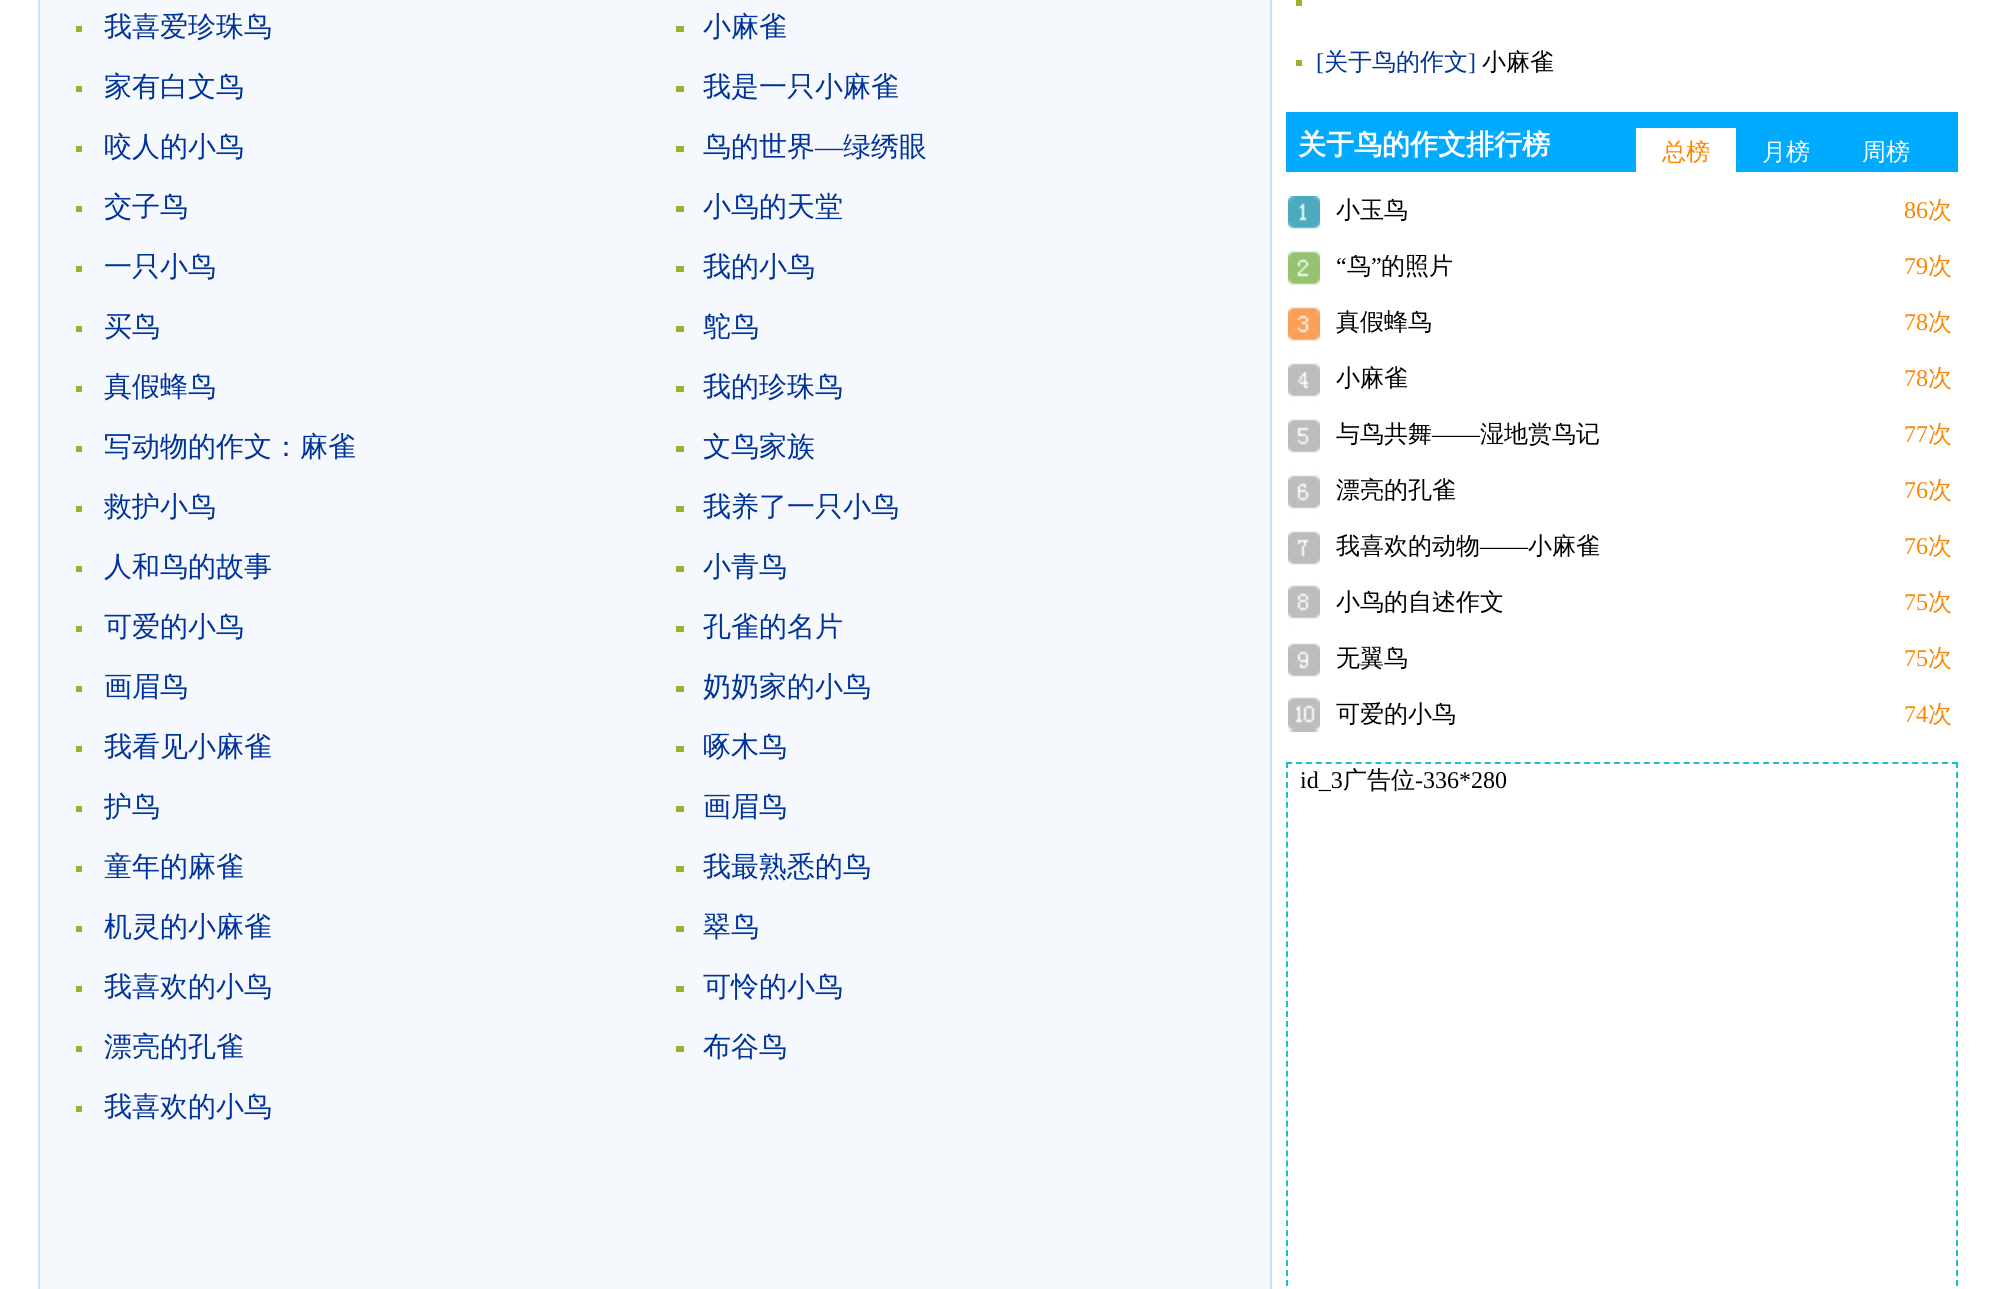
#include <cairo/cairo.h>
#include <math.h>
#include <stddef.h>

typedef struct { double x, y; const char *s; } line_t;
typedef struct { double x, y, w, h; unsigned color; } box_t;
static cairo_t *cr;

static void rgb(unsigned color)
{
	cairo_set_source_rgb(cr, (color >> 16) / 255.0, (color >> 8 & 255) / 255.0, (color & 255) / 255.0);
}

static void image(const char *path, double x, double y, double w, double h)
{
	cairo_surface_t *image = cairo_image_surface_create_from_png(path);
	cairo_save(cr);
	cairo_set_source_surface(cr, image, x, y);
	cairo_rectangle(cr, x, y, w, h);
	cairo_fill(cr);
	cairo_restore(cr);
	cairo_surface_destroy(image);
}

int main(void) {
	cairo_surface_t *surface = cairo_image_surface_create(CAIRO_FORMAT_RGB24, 1996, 1289);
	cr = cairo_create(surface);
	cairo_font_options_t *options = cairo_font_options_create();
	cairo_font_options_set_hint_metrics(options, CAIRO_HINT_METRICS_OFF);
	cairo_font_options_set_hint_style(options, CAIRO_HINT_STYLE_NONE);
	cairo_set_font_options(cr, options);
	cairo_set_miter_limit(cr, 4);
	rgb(0xffffff);
	cairo_paint(cr);
	rgb(0xf5f8fd);
	cairo_rectangle(cr, 39, -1, 1232, 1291);
	cairo_fill_preserve(cr);
	rgb(0xc9e2f8);
	cairo_stroke(cr);
	{
		static const box_t items[] = {
			{76, 26, 6, 6, 0x9cb12f},
			{676, 26, 8, 6, 0x9cb12f},
			{76, 86, 6, 6, 0x9cb12f},
			{676, 86, 8, 6, 0x9cb12f},
			{76, 146, 6, 6, 0x9cb12f},
			{676, 146, 8, 6, 0x9cb12f},
			{76, 206, 6, 6, 0x9cb12f},
			{676, 206, 8, 6, 0x9cb12f},
			{76, 266, 6, 6, 0x9cb12f},
			{676, 266, 8, 6, 0x9cb12f},
			{76, 326, 6, 6, 0x9cb12f},
			{676, 326, 8, 6, 0x9cb12f},
			{76, 386, 6, 6, 0x9cb12f},
			{676, 386, 8, 6, 0x9cb12f},
			{76, 446, 6, 6, 0x9cb12f},
			{676, 446, 8, 6, 0x9cb12f},
			{76, 506, 6, 6, 0x9cb12f},
			{676, 506, 8, 6, 0x9cb12f},
			{76, 566, 6, 6, 0x9cb12f},
			{676, 566, 8, 6, 0x9cb12f},
			{76, 626, 6, 6, 0x9cb12f},
			{676, 626, 8, 6, 0x9cb12f},
			{76, 686, 6, 6, 0x9cb12f},
			{676, 686, 8, 6, 0x9cb12f},
			{76, 746, 6, 6, 0x9cb12f},
			{676, 746, 8, 6, 0x9cb12f},
			{76, 806, 6, 6, 0x9cb12f},
			{676, 806, 8, 6, 0x9cb12f},
			{76, 866, 6, 6, 0x9cb12f},
			{676, 866, 8, 6, 0x9cb12f},
			{76, 926, 6, 6, 0x9cb12f},
			{676, 926, 8, 6, 0x9cb12f},
			{76, 986, 6, 6, 0x9cb12f},
			{676, 986, 8, 6, 0x9cb12f},
			{76, 1046, 6, 6, 0x9cb12f},
			{676, 1046, 8, 6, 0x9cb12f},
			{76, 1106, 6, 6, 0x9cb12f},
			{1296, 0, 6, 6, 0x9cb12f},
			{1296, 60, 6, 6, 0x9cb12f},
			{1286, 112, 672, 60, 0x00aaff},
			{1636, 128, 100, 44, 0xffffff},
		};
		for (size_t i = 0; i < sizeof items / sizeof *items; i++) {
			rgb(items[i].color);
			cairo_rectangle(cr, items[i].x, items[i].y, items[i].w, items[i].h);
			cairo_fill(cr);
		}
	}
	image("img/1.png", 1288, 196, 32, 536);
	cairo_new_path(cr);
	cairo_move_to(cr, 1286, 763);
	cairo_line_to(cr, 1958, 763);
	rgb(0x18c2c8);
	cairo_set_dash(cr, (double[]){6, 3.94}, 2, 0);
	cairo_stroke(cr);
	cairo_new_path(cr);
	cairo_move_to(cr, 1957, 762);
	cairo_line_to(cr, 1957, 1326);
	cairo_set_dash(cr, (double[]){6, 3.96}, 2, 0);
	cairo_stroke(cr);
	cairo_new_path(cr);
	cairo_move_to(cr, 1287, 762);
	cairo_line_to(cr, 1287, 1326);
	cairo_stroke(cr);
	cairo_select_font_face(cr, "WenQuanYi Zen Hei Medium", CAIRO_FONT_SLANT_NORMAL, CAIRO_FONT_WEIGHT_NORMAL);
	cairo_set_font_size(cr, 28);
	rgb(0x003399);
	{
		static const line_t items[] = {
			{104, 36, "我喜爱珍珠鸟"},
			{703, 36, "小麻雀"},
			{104, 96, "家有白文鸟"},
			{703, 96, "我是一只小麻雀"},
			{104, 156, "咬人的小鸟"},
			{703, 156, "鸟的世界"},
		};
		for (size_t i = 0; i < sizeof items / sizeof *items; i++) {
			cairo_move_to(cr, items[i].x, items[i].y);
			cairo_show_text(cr, items[i].s);
		}
	}
	cairo_select_font_face(cr, "Liberation Serif", CAIRO_FONT_SLANT_NORMAL, CAIRO_FONT_WEIGHT_NORMAL);
	cairo_move_to(cr, 815, 156);
	cairo_show_text(cr, "—");
	cairo_select_font_face(cr, "WenQuanYi Zen Hei Medium", CAIRO_FONT_SLANT_NORMAL, CAIRO_FONT_WEIGHT_NORMAL);
	{
		static const line_t items[] = {
			{843, 156, "绿绣眼"},
			{104, 216, "交子鸟"},
			{703, 216, "小鸟的天堂"},
			{104, 276, "一只小鸟"},
			{703, 276, "我的小鸟"},
			{104, 336, "买鸟"},
			{703, 336, "鸵鸟"},
			{104, 396, "真假蜂鸟"},
			{703, 396, "我的珍珠鸟"},
			{104, 456, "写动物的作文：麻雀"},
			{703, 456, "文鸟家族"},
			{104, 516, "救护小鸟"},
			{703, 516, "我养了一只小鸟"},
			{104, 576, "人和鸟的故事"},
			{703, 576, "小青鸟"},
			{104, 636, "可爱的小鸟"},
			{703, 636, "孔雀的名片"},
			{104, 696, "画眉鸟"},
			{703, 696, "奶奶家的小鸟"},
			{104, 756, "我看见小麻雀"},
			{703, 756, "啄木鸟"},
			{104, 816, "护鸟"},
			{703, 816, "画眉鸟"},
			{104, 876, "童年的麻雀"},
			{703, 876, "我最熟悉的鸟"},
			{104, 936, "机灵的小麻雀"},
			{703, 936, "翠鸟"},
			{104, 996, "我喜欢的小鸟"},
			{703, 996, "可怜的小鸟"},
			{104, 1056, "漂亮的孔雀"},
			{703, 1056, "布谷鸟"},
			{104, 1116, "我喜欢的小鸟"},
		};
		for (size_t i = 0; i < sizeof items / sizeof *items; i++) {
			cairo_move_to(cr, items[i].x, items[i].y);
			cairo_show_text(cr, items[i].s);
		}
	}
	cairo_select_font_face(cr, "Liberation Serif", CAIRO_FONT_SLANT_NORMAL, CAIRO_FONT_WEIGHT_NORMAL);
	cairo_set_font_size(cr, 24);
	cairo_move_to(cr, 1316, 70);
	cairo_show_text(cr, "[");
	cairo_select_font_face(cr, "WenQuanYi Zen Hei Medium", CAIRO_FONT_SLANT_NORMAL, CAIRO_FONT_WEIGHT_NORMAL);
	cairo_move_to(cr, 1324, 70);
	cairo_show_text(cr, "关于鸟的作文");
	cairo_select_font_face(cr, "Liberation Serif", CAIRO_FONT_SLANT_NORMAL, CAIRO_FONT_WEIGHT_NORMAL);
	cairo_move_to(cr, 1468, 70);
	cairo_show_text(cr, "]");
	cairo_select_font_face(cr, "WenQuanYi Zen Hei Medium", CAIRO_FONT_SLANT_NORMAL, CAIRO_FONT_WEIGHT_NORMAL);
	rgb(0x000000);
	cairo_move_to(cr, 1482, 70);
	cairo_show_text(cr, "小麻雀");
	cairo_select_font_face(cr, "WenQuanYi Zen Hei", CAIRO_FONT_SLANT_NORMAL, CAIRO_FONT_WEIGHT_BOLD);
	cairo_set_font_size(cr, 28);
	rgb(0xffffff);
	cairo_move_to(cr, 1298, 154);
	cairo_show_text(cr, "关于鸟的作文排行榜");
	cairo_select_font_face(cr, "WenQuanYi Zen Hei Medium", CAIRO_FONT_SLANT_NORMAL, CAIRO_FONT_WEIGHT_NORMAL);
	cairo_set_font_size(cr, 24);
	rgb(0xff8500);
	cairo_move_to(cr, 1662, 160);
	cairo_show_text(cr, "总榜");
	rgb(0xffffff);
	cairo_move_to(cr, 1762, 160);
	cairo_show_text(cr, "月榜");
	cairo_move_to(cr, 1862, 160);
	cairo_show_text(cr, "周榜");
	rgb(0x000000);
	cairo_move_to(cr, 1336, 218);
	cairo_show_text(cr, "小玉鸟");
	cairo_select_font_face(cr, "Liberation Serif", CAIRO_FONT_SLANT_NORMAL, CAIRO_FONT_WEIGHT_NORMAL);
	rgb(0xff8500);
	cairo_move_to(cr, 1904, 218);
	cairo_show_text(cr, "86");
	cairo_select_font_face(cr, "WenQuanYi Zen Hei Medium", CAIRO_FONT_SLANT_NORMAL, CAIRO_FONT_WEIGHT_NORMAL);
	cairo_move_to(cr, 1928, 218);
	cairo_show_text(cr, "次");
	cairo_select_font_face(cr, "Liberation Serif", CAIRO_FONT_SLANT_NORMAL, CAIRO_FONT_WEIGHT_NORMAL);
	rgb(0x000000);
	cairo_move_to(cr, 1336, 274);
	cairo_show_text(cr, "“");
	cairo_select_font_face(cr, "WenQuanYi Zen Hei Medium", CAIRO_FONT_SLANT_NORMAL, CAIRO_FONT_WEIGHT_NORMAL);
	cairo_move_to(cr, 1347, 274);
	cairo_show_text(cr, "鸟");
	cairo_select_font_face(cr, "Liberation Serif", CAIRO_FONT_SLANT_NORMAL, CAIRO_FONT_WEIGHT_NORMAL);
	cairo_move_to(cr, 1371, 274);
	cairo_show_text(cr, "”");
	cairo_select_font_face(cr, "WenQuanYi Zen Hei Medium", CAIRO_FONT_SLANT_NORMAL, CAIRO_FONT_WEIGHT_NORMAL);
	cairo_move_to(cr, 1381, 274);
	cairo_show_text(cr, "的照片");
	cairo_select_font_face(cr, "Liberation Serif", CAIRO_FONT_SLANT_NORMAL, CAIRO_FONT_WEIGHT_NORMAL);
	rgb(0xff8500);
	cairo_move_to(cr, 1904, 274);
	cairo_show_text(cr, "79");
	cairo_select_font_face(cr, "WenQuanYi Zen Hei Medium", CAIRO_FONT_SLANT_NORMAL, CAIRO_FONT_WEIGHT_NORMAL);
	cairo_move_to(cr, 1928, 274);
	cairo_show_text(cr, "次");
	rgb(0x000000);
	cairo_move_to(cr, 1336, 330);
	cairo_show_text(cr, "真假蜂鸟");
	cairo_select_font_face(cr, "Liberation Serif", CAIRO_FONT_SLANT_NORMAL, CAIRO_FONT_WEIGHT_NORMAL);
	rgb(0xff8500);
	cairo_move_to(cr, 1904, 330);
	cairo_show_text(cr, "78");
	cairo_select_font_face(cr, "WenQuanYi Zen Hei Medium", CAIRO_FONT_SLANT_NORMAL, CAIRO_FONT_WEIGHT_NORMAL);
	cairo_move_to(cr, 1928, 330);
	cairo_show_text(cr, "次");
	rgb(0x000000);
	cairo_move_to(cr, 1336, 386);
	cairo_show_text(cr, "小麻雀");
	cairo_select_font_face(cr, "Liberation Serif", CAIRO_FONT_SLANT_NORMAL, CAIRO_FONT_WEIGHT_NORMAL);
	rgb(0xff8500);
	cairo_move_to(cr, 1904, 386);
	cairo_show_text(cr, "78");
	cairo_select_font_face(cr, "WenQuanYi Zen Hei Medium", CAIRO_FONT_SLANT_NORMAL, CAIRO_FONT_WEIGHT_NORMAL);
	cairo_move_to(cr, 1928, 386);
	cairo_show_text(cr, "次");
	rgb(0x000000);
	cairo_move_to(cr, 1336, 442);
	cairo_show_text(cr, "与鸟共舞");
	cairo_select_font_face(cr, "Liberation Serif", CAIRO_FONT_SLANT_NORMAL, CAIRO_FONT_WEIGHT_NORMAL);
	cairo_move_to(cr, 1432, 442);
	cairo_show_text(cr, "——");
	cairo_select_font_face(cr, "WenQuanYi Zen Hei Medium", CAIRO_FONT_SLANT_NORMAL, CAIRO_FONT_WEIGHT_NORMAL);
	cairo_move_to(cr, 1480, 442);
	cairo_show_text(cr, "湿地赏鸟记");
	cairo_select_font_face(cr, "Liberation Serif", CAIRO_FONT_SLANT_NORMAL, CAIRO_FONT_WEIGHT_NORMAL);
	rgb(0xff8500);
	cairo_move_to(cr, 1904, 442);
	cairo_show_text(cr, "77");
	cairo_select_font_face(cr, "WenQuanYi Zen Hei Medium", CAIRO_FONT_SLANT_NORMAL, CAIRO_FONT_WEIGHT_NORMAL);
	cairo_move_to(cr, 1928, 442);
	cairo_show_text(cr, "次");
	rgb(0x000000);
	cairo_move_to(cr, 1336, 498);
	cairo_show_text(cr, "漂亮的孔雀");
	cairo_select_font_face(cr, "Liberation Serif", CAIRO_FONT_SLANT_NORMAL, CAIRO_FONT_WEIGHT_NORMAL);
	rgb(0xff8500);
	cairo_move_to(cr, 1904, 498);
	cairo_show_text(cr, "76");
	cairo_select_font_face(cr, "WenQuanYi Zen Hei Medium", CAIRO_FONT_SLANT_NORMAL, CAIRO_FONT_WEIGHT_NORMAL);
	cairo_move_to(cr, 1928, 498);
	cairo_show_text(cr, "次");
	rgb(0x000000);
	cairo_move_to(cr, 1336, 554);
	cairo_show_text(cr, "我喜欢的动物");
	cairo_select_font_face(cr, "Liberation Serif", CAIRO_FONT_SLANT_NORMAL, CAIRO_FONT_WEIGHT_NORMAL);
	cairo_move_to(cr, 1480, 554);
	cairo_show_text(cr, "——");
	cairo_select_font_face(cr, "WenQuanYi Zen Hei Medium", CAIRO_FONT_SLANT_NORMAL, CAIRO_FONT_WEIGHT_NORMAL);
	cairo_move_to(cr, 1528, 554);
	cairo_show_text(cr, "小麻雀");
	cairo_select_font_face(cr, "Liberation Serif", CAIRO_FONT_SLANT_NORMAL, CAIRO_FONT_WEIGHT_NORMAL);
	rgb(0xff8500);
	cairo_move_to(cr, 1904, 554);
	cairo_show_text(cr, "76");
	cairo_select_font_face(cr, "WenQuanYi Zen Hei Medium", CAIRO_FONT_SLANT_NORMAL, CAIRO_FONT_WEIGHT_NORMAL);
	cairo_move_to(cr, 1928, 554);
	cairo_show_text(cr, "次");
	rgb(0x000000);
	cairo_move_to(cr, 1336, 610);
	cairo_show_text(cr, "小鸟的自述作文");
	cairo_select_font_face(cr, "Liberation Serif", CAIRO_FONT_SLANT_NORMAL, CAIRO_FONT_WEIGHT_NORMAL);
	rgb(0xff8500);
	cairo_move_to(cr, 1904, 610);
	cairo_show_text(cr, "75");
	cairo_select_font_face(cr, "WenQuanYi Zen Hei Medium", CAIRO_FONT_SLANT_NORMAL, CAIRO_FONT_WEIGHT_NORMAL);
	cairo_move_to(cr, 1928, 610);
	cairo_show_text(cr, "次");
	rgb(0x000000);
	cairo_move_to(cr, 1336, 666);
	cairo_show_text(cr, "无翼鸟");
	cairo_select_font_face(cr, "Liberation Serif", CAIRO_FONT_SLANT_NORMAL, CAIRO_FONT_WEIGHT_NORMAL);
	rgb(0xff8500);
	cairo_move_to(cr, 1904, 666);
	cairo_show_text(cr, "75");
	cairo_select_font_face(cr, "WenQuanYi Zen Hei Medium", CAIRO_FONT_SLANT_NORMAL, CAIRO_FONT_WEIGHT_NORMAL);
	cairo_move_to(cr, 1928, 666);
	cairo_show_text(cr, "次");
	rgb(0x000000);
	cairo_move_to(cr, 1336, 722);
	cairo_show_text(cr, "可爱的小鸟");
	cairo_select_font_face(cr, "Liberation Serif", CAIRO_FONT_SLANT_NORMAL, CAIRO_FONT_WEIGHT_NORMAL);
	rgb(0xff8500);
	cairo_move_to(cr, 1904, 722);
	cairo_show_text(cr, "74");
	cairo_select_font_face(cr, "WenQuanYi Zen Hei Medium", CAIRO_FONT_SLANT_NORMAL, CAIRO_FONT_WEIGHT_NORMAL);
	cairo_move_to(cr, 1928, 722);
	cairo_show_text(cr, "次");
	cairo_select_font_face(cr, "Liberation Serif", CAIRO_FONT_SLANT_NORMAL, CAIRO_FONT_WEIGHT_NORMAL);
	rgb(0x000000);
	cairo_move_to(cr, 1300, 788);
	cairo_show_text(cr, "id_3");
	cairo_select_font_face(cr, "WenQuanYi Zen Hei Medium", CAIRO_FONT_SLANT_NORMAL, CAIRO_FONT_WEIGHT_NORMAL);
	cairo_move_to(cr, 1343, 788);
	cairo_show_text(cr, "广告位");
	cairo_select_font_face(cr, "Liberation Serif", CAIRO_FONT_SLANT_NORMAL, CAIRO_FONT_WEIGHT_NORMAL);
	cairo_move_to(cr, 1415, 788);
	cairo_show_text(cr, "-336*280");
	cairo_surface_write_to_png(surface, "page.png");
	cairo_font_options_destroy(options);
	cairo_destroy(cr);
	cairo_surface_destroy(surface);
	return 0;
}
